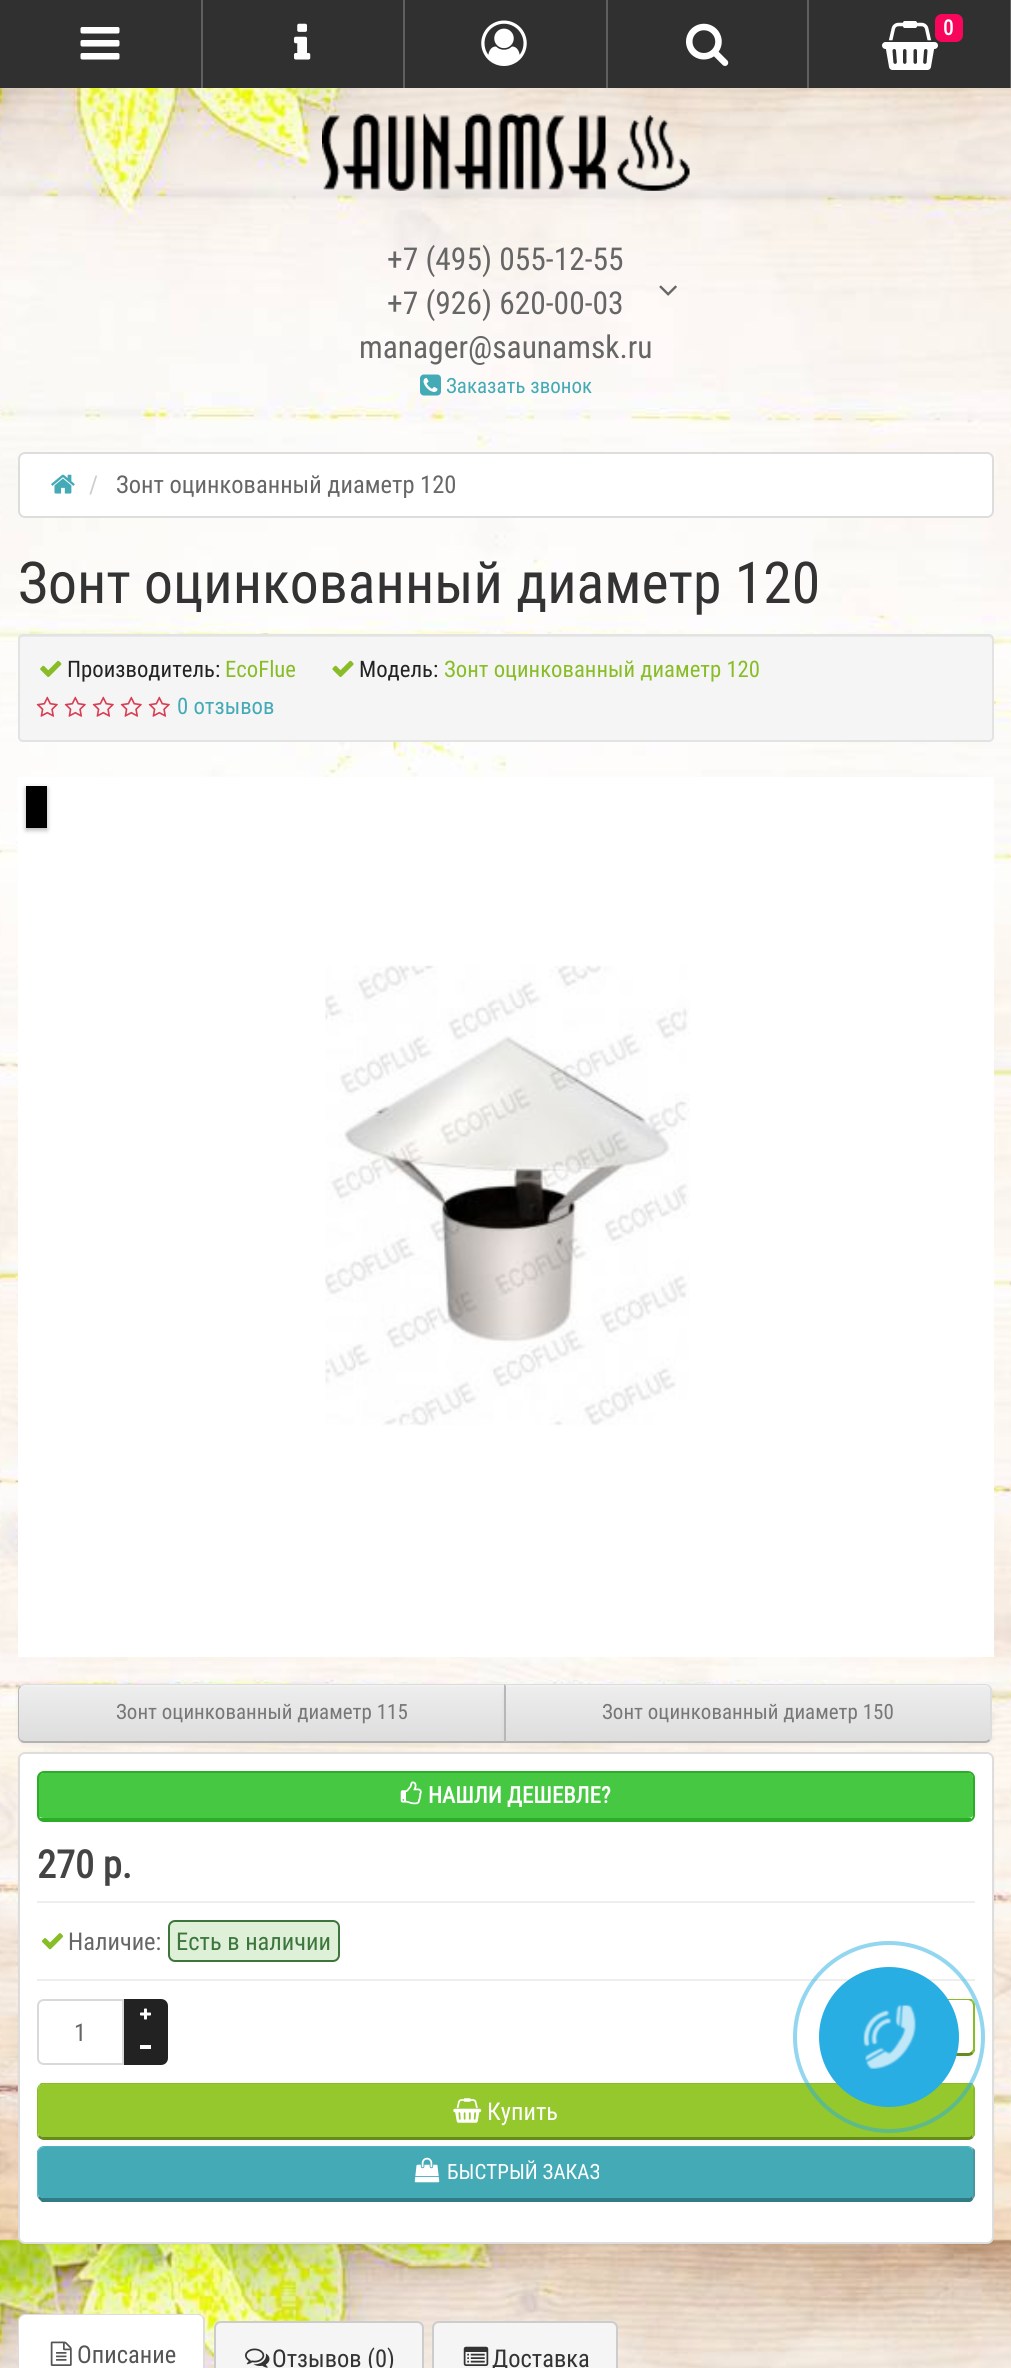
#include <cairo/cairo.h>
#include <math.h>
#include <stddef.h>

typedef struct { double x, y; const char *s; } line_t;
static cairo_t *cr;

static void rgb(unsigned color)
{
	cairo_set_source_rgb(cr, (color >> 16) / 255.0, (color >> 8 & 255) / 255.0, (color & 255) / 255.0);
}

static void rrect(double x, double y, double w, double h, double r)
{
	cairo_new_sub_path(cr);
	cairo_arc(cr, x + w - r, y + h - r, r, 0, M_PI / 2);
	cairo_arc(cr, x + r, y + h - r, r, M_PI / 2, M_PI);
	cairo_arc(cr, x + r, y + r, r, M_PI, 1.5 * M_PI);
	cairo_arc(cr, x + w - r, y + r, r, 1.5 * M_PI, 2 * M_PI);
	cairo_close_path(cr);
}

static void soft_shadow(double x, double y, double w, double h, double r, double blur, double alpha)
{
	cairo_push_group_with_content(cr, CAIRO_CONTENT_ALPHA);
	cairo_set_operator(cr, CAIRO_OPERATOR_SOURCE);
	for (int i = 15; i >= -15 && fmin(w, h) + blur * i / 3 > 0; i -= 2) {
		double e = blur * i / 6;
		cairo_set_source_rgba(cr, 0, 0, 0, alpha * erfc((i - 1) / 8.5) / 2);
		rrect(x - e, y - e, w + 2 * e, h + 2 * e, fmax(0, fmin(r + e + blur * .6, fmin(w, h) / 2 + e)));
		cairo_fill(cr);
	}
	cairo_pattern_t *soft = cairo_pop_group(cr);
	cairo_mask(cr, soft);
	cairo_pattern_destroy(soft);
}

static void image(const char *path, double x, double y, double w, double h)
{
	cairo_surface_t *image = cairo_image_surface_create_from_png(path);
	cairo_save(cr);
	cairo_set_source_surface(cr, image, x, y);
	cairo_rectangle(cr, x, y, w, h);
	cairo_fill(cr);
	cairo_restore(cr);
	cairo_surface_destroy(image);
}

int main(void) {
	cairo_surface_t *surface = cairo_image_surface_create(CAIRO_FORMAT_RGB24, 1011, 2368);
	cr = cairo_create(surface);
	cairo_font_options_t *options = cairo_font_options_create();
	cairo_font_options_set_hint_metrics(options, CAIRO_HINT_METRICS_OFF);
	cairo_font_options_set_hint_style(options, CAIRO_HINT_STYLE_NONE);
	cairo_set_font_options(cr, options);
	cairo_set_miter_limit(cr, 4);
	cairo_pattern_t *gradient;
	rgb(0xffffff);
	cairo_paint(cr);
	image("img/1.png", 0, 88, 1011, 2280);
	rgb(0x303030);
	cairo_rectangle(cr, 0, 0, 1010, 88);
	cairo_fill(cr);
	rgb(0x5f5f5f);
	cairo_rectangle(cr, 201, 0, 2, 88);
	cairo_fill(cr);
	image("img/2.png", 80, 27, 40, 33);
	cairo_rectangle(cr, 403, 0, 2, 88);
	cairo_fill(cr);
	image("img/3.png", 294, 23, 17, 37);
	cairo_rectangle(cr, 606, 0, 2, 88);
	cairo_fill(cr);
	image("img/4.png", 481, 20, 46, 46);
	cairo_rectangle(cr, 807, 0, 2, 88);
	cairo_fill(cr);
	image("img/5.png", 686, 23, 43, 43);
	cairo_rectangle(cr, 1010, 0, 1, 88);
	cairo_fill(cr);
	image("img/6.png", 882, 21, 56, 49);
	rgb(0xf7075b);
	rrect(935, 14, 28, 28, 7);
	cairo_fill(cr);
	image("img/7.png", 322, 113, 368, 78);
	image("img/8.png", 659, 285, 18, 11);
	image("img/9.png", 420, 374, 21, 22);
	rgb(0xffffff);
	rrect(19, 453, 974, 64, 6);
	cairo_fill_preserve(cr);
	rgb(0xdddddd);
	cairo_stroke(cr);
	image("img/10.png", 51, 474, 24, 20);
	rgb(0xf5f5f5);
	rrect(18, 634, 976, 108, 5);
	cairo_fill(cr);
	rgb(0xe9e9e9);
	cairo_new_path(cr);
	cairo_move_to(cr, 23, 637);
	cairo_line_to(cr, 989, 637);
	cairo_curve_to(cr, 991, 637, 992, 639, 992, 640);
	cairo_curve_to(cr, 992, 637, 991, 635, 988, 635);
	cairo_line_to(cr, 23, 635);
	cairo_curve_to(cr, 20, 635, 19, 637, 19, 640);
	cairo_curve_to(cr, 19, 639, 21, 637, 23, 637);
	cairo_close_path(cr);
	cairo_fill(cr);
	rrect(19, 635, 974, 106, 4);
	rgb(0xe3e3e3);
	cairo_stroke(cr);
	image("img/11.png", 40, 660, 22, 17);
	image("img/12.png", 332, 660, 22, 17);
	image("img/13.png", 36, 696, 22, 21);
	image("img/13.png", 64, 696, 22, 21);
	image("img/13.png", 92, 696, 22, 21);
	image("img/13.png", 120, 696, 22, 21);
	image("img/13.png", 148, 696, 22, 21);
	rgb(0xffffff);
	cairo_rectangle(cr, 18, 777, 976, 880);
	cairo_fill(cr);
	rgb(0x000000);
	soft_shadow(26, 788, 21, 42, 0, 2.5, 0.3);
	rgb(0x000000);
	cairo_rectangle(cr, 26, 786, 21, 42);
	cairo_fill(cr);
	image("img/14.png", 325, 965, 365, 461);
	rgb(0x000000);
	soft_shadow(18, 1685, 488, 60, 7, 2, 0.05);
	cairo_save(cr);
	cairo_new_path(cr);
	cairo_move_to(cr, 25, 1684);
	cairo_line_to(cr, 506, 1684);
	cairo_line_to(cr, 506, 1743);
	cairo_line_to(cr, 25, 1743);
	cairo_curve_to(cr, 21, 1743, 18, 1740, 18, 1736);
	cairo_line_to(cr, 18, 1691);
	cairo_curve_to(cr, 18, 1687, 21, 1684, 25, 1684);
	cairo_close_path(cr);
	cairo_clip(cr);
	gradient = cairo_pattern_create_linear(262, 1685, 262, 1741);
	cairo_pattern_add_color_stop_rgba(gradient, 0, 0.933, 0.933, 0.933, 1);
	cairo_pattern_add_color_stop_rgba(gradient, 1, 0.867, 0.867, 0.867, 1);
	cairo_set_source(cr, gradient);
	cairo_pattern_destroy(gradient);
	cairo_rectangle(cr, 18, 1685, 486, 56);
	cairo_fill(cr);
	cairo_restore(cr);
	rgb(0xf1f1f1);
	cairo_new_path(cr);
	cairo_move_to(cr, 24, 1687);
	cairo_line_to(cr, 504, 1687);
	cairo_line_to(cr, 504, 1685);
	cairo_line_to(cr, 24, 1685);
	cairo_curve_to(cr, 21, 1685, 19, 1687, 19, 1690);
	cairo_line_to(cr, 19, 1692);
	cairo_curve_to(cr, 19, 1689, 22, 1687, 24, 1687);
	cairo_close_path(cr);
	cairo_fill(cr);
	rgb(0xdddddd);
	cairo_new_path(cr);
	cairo_move_to(cr, 24, 1684);
	cairo_curve_to(cr, 22, 1684, 21, 1685, 20, 1686);
	cairo_line_to(cr, 21, 1687);
	cairo_line_to(cr, 24, 1685);
	cairo_line_to(cr, 504, 1685);
	cairo_line_to(cr, 505, 1684);
	cairo_close_path(cr);
	cairo_fill(cr);
	rgb(0xb3b3b3);
	cairo_new_path(cr);
	cairo_move_to(cr, 506, 1743);
	cairo_line_to(cr, 504, 1741);
	cairo_line_to(cr, 24, 1741);
	cairo_line_to(cr, 21, 1740);
	cairo_line_to(cr, 20, 1741);
	cairo_curve_to(cr, 21, 1742, 22, 1743, 24, 1743);
	cairo_close_path(cr);
	cairo_fill(cr);
	rgb(0xb7b7b7);
	cairo_new_path(cr);
	cairo_move_to(cr, 20, 1686);
	cairo_curve_to(cr, 19, 1687, 18, 1688, 18, 1690);
	cairo_line_to(cr, 18, 1736);
	cairo_curve_to(cr, 18, 1738, 19, 1740, 20, 1741);
	cairo_line_to(cr, 21, 1740);
	cairo_curve_to(cr, 20, 1739, 19, 1738, 19, 1736);
	cairo_line_to(cr, 19, 1690);
	cairo_curve_to(cr, 19, 1689, 20, 1688, 21, 1687);
	cairo_close_path(cr);
	cairo_fill(cr);
	rgb(0x000000);
	soft_shadow(504, 1685, 488, 60, 7, 2, 0.05);
	cairo_save(cr);
	cairo_new_path(cr);
	cairo_move_to(cr, 504, 1684);
	cairo_line_to(cr, 985, 1684);
	cairo_curve_to(cr, 989, 1684, 992, 1687, 992, 1691);
	cairo_line_to(cr, 992, 1736);
	cairo_curve_to(cr, 992, 1740, 989, 1743, 985, 1743);
	cairo_line_to(cr, 504, 1743);
	cairo_close_path(cr);
	cairo_clip(cr);
	gradient = cairo_pattern_create_linear(748, 1685, 748, 1741);
	cairo_pattern_add_color_stop_rgba(gradient, 0, 0.933, 0.933, 0.933, 1);
	cairo_pattern_add_color_stop_rgba(gradient, 1, 0.867, 0.867, 0.867, 1);
	cairo_set_source(cr, gradient);
	cairo_pattern_destroy(gradient);
	cairo_rectangle(cr, 505, 1685, 487, 56);
	cairo_fill(cr);
	cairo_restore(cr);
	cairo_set_source_rgba(cr, 1, 1, 1, 0.2);
	cairo_new_path(cr);
	cairo_move_to(cr, 506, 1687);
	cairo_line_to(cr, 985, 1687);
	cairo_curve_to(cr, 988, 1687, 990, 1689, 990, 1692);
	cairo_line_to(cr, 990, 1739);
	cairo_curve_to(cr, 991, 1738, 991, 1737, 991, 1736);
	cairo_line_to(cr, 991, 1690);
	cairo_curve_to(cr, 991, 1687, 989, 1685, 986, 1685);
	cairo_line_to(cr, 506, 1685);
	cairo_close_path(cr);
	cairo_fill(cr);
	rgb(0xdddddd);
	cairo_new_path(cr);
	cairo_move_to(cr, 506, 1685);
	cairo_line_to(cr, 985, 1685);
	cairo_curve_to(cr, 987, 1685, 988, 1686, 989, 1687);
	cairo_line_to(cr, 990, 1686);
	cairo_curve_to(cr, 989, 1685, 987, 1684, 985, 1684);
	cairo_line_to(cr, 504, 1684);
	cairo_line_to(cr, 506, 1686);
	cairo_close_path(cr);
	cairo_fill(cr);
	cairo_new_path(cr);
	cairo_move_to(cr, 990, 1686);
	cairo_curve_to(cr, 991, 1687, 992, 1688, 992, 1690);
	cairo_line_to(cr, 992, 1736);
	cairo_curve_to(cr, 992, 1738, 991, 1740, 990, 1741);
	cairo_line_to(cr, 989, 1739);
	cairo_curve_to(cr, 990, 1739, 990, 1737, 990, 1736);
	cairo_line_to(cr, 990, 1690);
	cairo_curve_to(cr, 990, 1689, 990, 1688, 989, 1687);
	cairo_close_path(cr);
	cairo_fill(cr);
	rgb(0xb3b3b3);
	cairo_new_path(cr);
	cairo_move_to(cr, 985, 1743);
	cairo_curve_to(cr, 987, 1743, 989, 1742, 990, 1741);
	cairo_line_to(cr, 989, 1739);
	cairo_curve_to(cr, 988, 1740, 987, 1741, 985, 1741);
	cairo_line_to(cr, 506, 1741);
	cairo_line_to(cr, 504, 1743);
	cairo_close_path(cr);
	cairo_fill(cr);
	rgb(0xb7b7b7);
	cairo_new_path(cr);
	cairo_move_to(cr, 504, 1743);
	cairo_line_to(cr, 506, 1741);
	cairo_line_to(cr, 506, 1686);
	cairo_line_to(cr, 504, 1684);
	cairo_close_path(cr);
	cairo_fill(cr);
	rgb(0x000000);
	soft_shadow(18, 1754, 976, 491, 7, 1, 0.05);
	rgb(0xffffff);
	rrect(19, 1753, 974, 490, 6);
	cairo_fill_preserve(cr);
	rgb(0xdddddd);
	cairo_stroke(cr);
	rgb(0x47c843);
	cairo_new_path(cr);
	cairo_move_to(cr, 44, 1773);
	cairo_line_to(cr, 968, 1773);
	cairo_curve_to(cr, 971, 1773, 973, 1775, 973, 1778);
	cairo_line_to(cr, 973, 1815);
	cairo_curve_to(cr, 973, 1817, 971, 1818, 968, 1818);
	cairo_line_to(cr, 44, 1818);
	cairo_curve_to(cr, 41, 1818, 38, 1817, 38, 1815);
	cairo_line_to(cr, 38, 1778);
	cairo_curve_to(cr, 38, 1775, 41, 1773, 44, 1773);
	cairo_close_path(cr);
	cairo_fill(cr);
	rrect(38, 1772, 936, 49, 6);
	rgb(0x2cad28);
	cairo_stroke(cr);
	cairo_rectangle(cr, 40, 1818, 931, 2);
	cairo_fill(cr);
	image("img/15.png", 400, 1781, 22, 24);
	rgb(0xeeeeee);
	cairo_rectangle(cr, 37, 1901, 938, 2);
	cairo_fill(cr);
	image("img/16.png", 41, 1933, 23, 17);
	rgb(0xdff0d8);
	rrect(169, 1921, 170, 40, 6);
	cairo_fill_preserve(cr);
	rgb(0x3c763d);
	cairo_stroke(cr);
	rgb(0xeeeeee);
	cairo_rectangle(cr, 37, 1979, 938, 2);
	cairo_fill(cr);
	cairo_new_path(cr);
	cairo_move_to(cr, 44, 2000);
	cairo_line_to(cr, 123, 2000);
	cairo_line_to(cr, 123, 2064);
	cairo_line_to(cr, 44, 2064);
	cairo_curve_to(cr, 40.5, 2064, 38, 2061.5, 38, 2058);
	cairo_line_to(cr, 38, 2006);
	cairo_curve_to(cr, 38, 2002.5, 40.5, 2000, 44, 2000);
	cairo_close_path(cr);
	rgb(0xd9d9d9);
	cairo_stroke(cr);
	rgb(0x222222);
	cairo_new_path(cr);
	cairo_move_to(cr, 124, 1999);
	cairo_line_to(cr, 161, 1999);
	cairo_curve_to(cr, 165, 1999, 168, 2002, 168, 2006);
	cairo_line_to(cr, 168, 2032);
	cairo_line_to(cr, 124, 2032);
	cairo_close_path(cr);
	cairo_fill(cr);
	image("img/17.png", 140, 2008, 11, 12);
	cairo_new_path(cr);
	cairo_move_to(cr, 124, 2032);
	cairo_line_to(cr, 168, 2032);
	cairo_line_to(cr, 168, 2058);
	cairo_curve_to(cr, 168, 2062, 165, 2065, 161, 2065);
	cairo_line_to(cr, 124, 2065);
	cairo_close_path(cr);
	cairo_fill(cr);
	rgb(0xffffff);
	cairo_rectangle(cr, 140, 2045, 11, 4);
	cairo_fill(cr);
	rgb(0x000000);
	soft_shadow(912, 2000, 63, 58, 7, 2, 0.05);
	rgb(0xffffff);
	cairo_new_path(cr);
	cairo_move_to(cr, 914, 2000);
	cairo_line_to(cr, 968, 2000);
	cairo_curve_to(cr, 971, 2000, 973, 2003, 973, 2006);
	cairo_line_to(cr, 973, 2049);
	cairo_curve_to(cr, 973, 2051, 971, 2053, 968, 2053);
	cairo_line_to(cr, 914, 2053);
	cairo_close_path(cr);
	cairo_fill(cr);
	cairo_save(cr);
	cairo_rectangle(cr, 37, 1999, 938, 66);
	cairo_clip(cr);
	rgb(0x89bd27);
	cairo_new_path(cr);
	cairo_move_to(cr, 914, 2000);
	cairo_line_to(cr, 914, 2001);
	cairo_line_to(cr, 912, 1998);
	cairo_line_to(cr, 970, 1998);
	cairo_line_to(cr, 973, 2000);
	cairo_line_to(cr, 972, 2002);
	cairo_curve_to(cr, 971, 2001, 969, 2000, 968, 2000);
	cairo_close_path(cr);
	cairo_fill(cr);
	cairo_restore(cr);
	rgb(0x89bd27);
	cairo_new_path(cr);
	cairo_move_to(cr, 975, 2051);
	cairo_line_to(cr, 973, 2054);
	cairo_line_to(cr, 972, 2051);
	cairo_line_to(cr, 973, 2049);
	cairo_line_to(cr, 973, 2005);
	cairo_line_to(cr, 972, 2002);
	cairo_line_to(cr, 973, 2000);
	cairo_line_to(cr, 975, 2004);
	cairo_close_path(cr);
	cairo_fill(cr);
	rgb(0x658b1d);
	cairo_new_path(cr);
	cairo_move_to(cr, 973, 2054);
	cairo_curve_to(cr, 972, 2055, 970, 2056, 968, 2056);
	cairo_line_to(cr, 912, 2056);
	cairo_line_to(cr, 914, 2052);
	cairo_line_to(cr, 914, 2053);
	cairo_line_to(cr, 968, 2053);
	cairo_curve_to(cr, 970, 2053, 971, 2052, 972, 2051);
	cairo_close_path(cr);
	cairo_fill(cr);
	rgb(0x94c82c);
	cairo_new_path(cr);
	cairo_move_to(cr, 44, 2084);
	cairo_line_to(cr, 968, 2084);
	cairo_curve_to(cr, 971, 2084, 973, 2087, 973, 2090);
	cairo_line_to(cr, 973, 2133);
	cairo_curve_to(cr, 973, 2135, 971, 2137, 968, 2137);
	cairo_line_to(cr, 44, 2137);
	cairo_curve_to(cr, 41, 2137, 38, 2135, 38, 2133);
	cairo_line_to(cr, 38, 2090);
	cairo_curve_to(cr, 38, 2087, 41, 2084, 44, 2084);
	cairo_close_path(cr);
	cairo_fill(cr);
	cairo_save(cr);
	cairo_rectangle(cr, 37, 2083, 938, 124);
	cairo_clip(cr);
	rgb(0x89bd27);
	cairo_new_path(cr);
	cairo_move_to(cr, 44, 2084);
	cairo_curve_to(cr, 43, 2084, 41, 2085, 40, 2086);
	cairo_line_to(cr, 39, 2085);
	cairo_line_to(cr, 42, 2082);
	cairo_line_to(cr, 970, 2082);
	cairo_line_to(cr, 973, 2084);
	cairo_line_to(cr, 972, 2086);
	cairo_curve_to(cr, 971, 2085, 969, 2084, 968, 2084);
	cairo_close_path(cr);
	cairo_fill(cr);
	cairo_restore(cr);
	rgb(0x89bd27);
	cairo_new_path(cr);
	cairo_move_to(cr, 975, 2135);
	cairo_line_to(cr, 973, 2138);
	cairo_line_to(cr, 972, 2135);
	cairo_line_to(cr, 973, 2133);
	cairo_line_to(cr, 973, 2089);
	cairo_line_to(cr, 972, 2086);
	cairo_line_to(cr, 973, 2084);
	cairo_line_to(cr, 975, 2088);
	cairo_close_path(cr);
	cairo_fill(cr);
	rgb(0x658b1d);
	cairo_new_path(cr);
	cairo_move_to(cr, 973, 2138);
	cairo_curve_to(cr, 972, 2139, 970, 2140, 968, 2140);
	cairo_line_to(cr, 44, 2140);
	cairo_curve_to(cr, 42, 2140, 40, 2139, 38, 2137);
	cairo_line_to(cr, 39, 2135);
	cairo_curve_to(cr, 40, 2136, 42, 2137, 44, 2137);
	cairo_line_to(cr, 968, 2137);
	cairo_curve_to(cr, 970, 2137, 971, 2136, 972, 2135);
	cairo_close_path(cr);
	cairo_fill(cr);
	rgb(0x89bd27);
	cairo_new_path(cr);
	cairo_move_to(cr, 38, 2137);
	cairo_curve_to(cr, 37, 2136, 37, 2135, 37, 2133);
	cairo_line_to(cr, 37, 2090);
	cairo_curve_to(cr, 37, 2088, 38, 2086, 39, 2085);
	cairo_line_to(cr, 40, 2086);
	cairo_curve_to(cr, 39, 2087, 38, 2088, 38, 2090);
	cairo_line_to(cr, 38, 2133);
	cairo_curve_to(cr, 38, 2134, 38, 2135, 39, 2135);
	cairo_close_path(cr);
	cairo_fill(cr);
	image("img/18.png", 453, 2098, 29, 25);
	rgb(0x43aab6);
	cairo_new_path(cr);
	cairo_move_to(cr, 44, 2147);
	cairo_line_to(cr, 968, 2147);
	cairo_curve_to(cr, 971, 2147, 973, 2150, 973, 2152);
	cairo_line_to(cr, 973, 2194);
	cairo_curve_to(cr, 973, 2196, 971, 2198, 968, 2198);
	cairo_line_to(cr, 44, 2198);
	cairo_curve_to(cr, 41, 2198, 38, 2196, 38, 2194);
	cairo_line_to(cr, 38, 2152);
	cairo_curve_to(cr, 38, 2150, 41, 2147, 44, 2147);
	cairo_close_path(cr);
	cairo_fill(cr);
	rgb(0x4cb6c2);
	cairo_new_path(cr);
	cairo_move_to(cr, 44, 2146);
	cairo_curve_to(cr, 42, 2146, 40, 2147, 39, 2148);
	cairo_line_to(cr, 40, 2149);
	cairo_curve_to(cr, 41, 2148, 43, 2147, 44, 2147);
	cairo_line_to(cr, 968, 2147);
	cairo_curve_to(cr, 969, 2147, 971, 2148, 972, 2149);
	cairo_line_to(cr, 973, 2148);
	cairo_curve_to(cr, 971, 2147, 970, 2146, 968, 2146);
	cairo_close_path(cr);
	cairo_fill(cr);
	cairo_save(cr);
	cairo_rectangle(cr, 37, 2083, 938, 124);
	cairo_clip(cr);
	rgb(0x4797a0);
	cairo_new_path(cr);
	cairo_move_to(cr, 973, 2148);
	cairo_line_to(cr, 975, 2150);
	cairo_line_to(cr, 975, 2188);
	cairo_curve_to(cr, 975, 2193, 976, 2196, 973, 2199);
	cairo_line_to(cr, 972, 2196);
	cairo_line_to(cr, 973, 2194);
	cairo_line_to(cr, 973, 2152);
	cairo_line_to(cr, 972, 2149);
	cairo_close_path(cr);
	cairo_fill(cr);
	cairo_restore(cr);
	rgb(0x317b84);
	cairo_new_path(cr);
	cairo_move_to(cr, 42, 2202);
	cairo_line_to(cr, 38, 2198);
	cairo_line_to(cr, 39, 2196);
	cairo_curve_to(cr, 40, 2197, 42, 2198, 44, 2198);
	cairo_line_to(cr, 968, 2198);
	cairo_curve_to(cr, 970, 2198, 971, 2197, 972, 2196);
	cairo_line_to(cr, 973, 2199);
	cairo_curve_to(cr, 973, 2200, 972, 2201, 970, 2202);
	cairo_close_path(cr);
	cairo_fill(cr);
	cairo_save(cr);
	cairo_rectangle(cr, 37, 2083, 938, 124);
	cairo_clip(cr);
	rgb(0x5cb7c2);
	cairo_new_path(cr);
	cairo_move_to(cr, 39, 2148);
	cairo_line_to(cr, 37, 2151);
	cairo_line_to(cr, 37, 2187);
	cairo_curve_to(cr, 37, 2191, 36, 2195, 38, 2198);
	cairo_line_to(cr, 39, 2196);
	cairo_line_to(cr, 38, 2194);
	cairo_line_to(cr, 38, 2152);
	cairo_line_to(cr, 40, 2149);
	cairo_close_path(cr);
	cairo_fill(cr);
	cairo_restore(cr);
	image("img/19.png", 414, 2157, 26, 26);
	rgb(0xffffff);
	cairo_new_path(cr);
	cairo_move_to(cr, 24, 2315);
	cairo_line_to(cr, 198, 2315);
	cairo_curve_to(cr, 201, 2315, 203, 2317, 203, 2320);
	cairo_line_to(cr, 203, 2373);
	cairo_line_to(cr, 19, 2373);
	cairo_line_to(cr, 19, 2320);
	cairo_curve_to(cr, 19, 2317, 21, 2315, 24, 2315);
	cairo_close_path(cr);
	cairo_fill(cr);
	rgb(0xdddddd);
	cairo_new_path(cr);
	cairo_move_to(cr, 24, 2314);
	cairo_curve_to(cr, 22, 2314, 21, 2315, 20, 2316);
	cairo_line_to(cr, 21, 2317);
	cairo_line_to(cr, 24, 2315);
	cairo_line_to(cr, 198, 2315);
	cairo_curve_to(cr, 199, 2315, 201, 2316, 202, 2317);
	cairo_line_to(cr, 203, 2316);
	cairo_curve_to(cr, 201, 2315, 200, 2314, 198, 2314);
	cairo_close_path(cr);
	cairo_fill(cr);
	cairo_new_path(cr);
	cairo_move_to(cr, 203, 2316);
	cairo_line_to(cr, 205, 2318);
	cairo_line_to(cr, 205, 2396);
	cairo_line_to(cr, 203, 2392);
	cairo_line_to(cr, 203, 2320);
	cairo_line_to(cr, 202, 2317);
	cairo_close_path(cr);
	cairo_fill(cr);
	cairo_new_path(cr);
	cairo_move_to(cr, 20, 2316);
	cairo_line_to(cr, 18, 2319);
	cairo_line_to(cr, 18, 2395);
	cairo_line_to(cr, 19, 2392);
	cairo_line_to(cr, 19, 2320);
	cairo_line_to(cr, 21, 2317);
	cairo_close_path(cr);
	cairo_fill(cr);
	image("img/20.png", 50, 2341, 22, 25);
	rgb(0xf5f5f5);
	cairo_new_path(cr);
	cairo_move_to(cr, 220, 2322);
	cairo_line_to(cr, 417, 2322);
	cairo_curve_to(cr, 420, 2322, 422, 2324, 422, 2327);
	cairo_line_to(cr, 422, 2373);
	cairo_line_to(cr, 215, 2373);
	cairo_line_to(cr, 215, 2327);
	cairo_curve_to(cr, 215, 2324, 217, 2322, 220, 2322);
	cairo_close_path(cr);
	cairo_fill(cr);
	cairo_new_path(cr);
	cairo_move_to(cr, 221, 2322);
	cairo_line_to(cr, 417, 2322);
	cairo_curve_to(cr, 420.5, 2322, 423, 2324.5, 423, 2328);
	cairo_line_to(cr, 423, 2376);
	cairo_line_to(cr, 215, 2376);
	cairo_line_to(cr, 215, 2328);
	cairo_curve_to(cr, 215, 2324.5, 217.5, 2322, 221, 2322);
	cairo_close_path(cr);
	rgb(0xcccccc);
	cairo_stroke(cr);
	image("img/21.png", 245, 2348, 25, 20);
	rgb(0xf5f5f5);
	cairo_new_path(cr);
	cairo_move_to(cr, 439, 2322);
	cairo_line_to(cr, 611, 2322);
	cairo_curve_to(cr, 614, 2322, 616, 2324, 616, 2327);
	cairo_line_to(cr, 616, 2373);
	cairo_line_to(cr, 434, 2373);
	cairo_line_to(cr, 434, 2327);
	cairo_curve_to(cr, 434, 2324, 436, 2322, 439, 2322);
	cairo_close_path(cr);
	cairo_fill(cr);
	cairo_new_path(cr);
	cairo_move_to(cr, 439, 2322);
	cairo_line_to(cr, 611, 2322);
	cairo_curve_to(cr, 614.5, 2322, 617, 2324.5, 617, 2328);
	cairo_line_to(cr, 617, 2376);
	cairo_line_to(cr, 433, 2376);
	cairo_line_to(cr, 433, 2328);
	cairo_curve_to(cr, 433, 2324.5, 435.5, 2322, 439, 2322);
	cairo_close_path(cr);
	rgb(0xcccccc);
	cairo_stroke(cr);
	image("img/22.png", 463, 2346, 26, 20);
	cairo_arc(cr, 889, 2037, 94, 0, 2 * M_PI);
	cairo_set_source_rgba(cr, 0.161, 0.682, 0.89, 0.5);
	cairo_set_line_width(cr, 4);
	cairo_stroke(cr);
	rgb(0x29aee3);
	cairo_arc(cr, 889, 2037, 70, 0, 2 * M_PI);
	cairo_fill(cr);
	image("img/23.png", 863, 2004, 53, 65);
	cairo_select_font_face(cr, "Roboto Condensed", CAIRO_FONT_SLANT_NORMAL, CAIRO_FONT_WEIGHT_BOLD);
	cairo_set_font_size(cr, 21);
	rgb(0xffffff);
	cairo_move_to(cr, 943, 35);
	cairo_show_text(cr, "0");
	cairo_select_font_face(cr, "Roboto Condensed", CAIRO_FONT_SLANT_NORMAL, CAIRO_FONT_WEIGHT_NORMAL);
	cairo_set_font_size(cr, 31.5);
	rgb(0x666666);
	{
		static const line_t items[] = {
			{387, 270, "+7 (495) 055-12-55"},
			{387, 314, "+7 (926) 620-00-03"},
			{359, 358, "manager@saunamsk.ru"},
		};
		for (size_t i = 0; i < sizeof items / sizeof *items; i++) {
			cairo_move_to(cr, items[i].x, items[i].y);
			cairo_show_text(cr, items[i].s);
		}
	}
	cairo_set_font_size(cr, 21);
	rgb(0x43aab6);
	cairo_move_to(cr, 446, 393);
	cairo_show_text(cr, "Заказать звонок");
	cairo_set_font_size(cr, 24.5);
	rgb(0xcccccc);
	cairo_move_to(cr, 89, 493);
	cairo_show_text(cr, "/");
	rgb(0x666666);
	cairo_move_to(cr, 116, 493);
	cairo_show_text(cr, "Зонт оцинкованный диаметр 120");
	cairo_set_font_size(cr, 57.75);
	rgb(0x333333);
	cairo_move_to(cr, 18, 603);
	cairo_show_text(cr, "Зонт оцинкованный диаметр 120");
	cairo_set_font_size(cr, 22.75);
	rgb(0x222222);
	cairo_move_to(cr, 67, 677);
	cairo_show_text(cr, "Производитель:");
	rgb(0x89bd27);
	cairo_move_to(cr, 225, 677);
	cairo_show_text(cr, "EcoFlue");
	rgb(0x222222);
	cairo_move_to(cr, 359, 677);
	cairo_show_text(cr, "Модель:");
	rgb(0x89bd27);
	cairo_move_to(cr, 444, 677);
	cairo_show_text(cr, "Зонт оцинкованный диаметр 120");
	rgb(0x43aab6);
	cairo_move_to(cr, 177, 714);
	cairo_show_text(cr, "0 отзывов");
	cairo_set_font_size(cr, 21);
	rgb(0x777777);
	cairo_move_to(cr, 116, 1719);
	cairo_show_text(cr, "Зонт оцинкованный диаметр 115");
	cairo_move_to(cr, 602, 1719);
	cairo_show_text(cr, "Зонт оцинкованный диаметр 150");
	cairo_select_font_face(cr, "Roboto Condensed", CAIRO_FONT_SLANT_NORMAL, CAIRO_FONT_WEIGHT_BOLD);
	cairo_set_font_size(cr, 22.75);
	rgb(0xffffff);
	cairo_move_to(cr, 428, 1803);
	cairo_show_text(cr, "НАШЛИ ДЕШЕВЛЕ?");
	cairo_set_font_size(cr, 38.5);
	rgb(0x444444);
	cairo_move_to(cr, 37, 1878);
	cairo_show_text(cr, "270 р.");
	cairo_select_font_face(cr, "Roboto Condensed", CAIRO_FONT_SLANT_NORMAL, CAIRO_FONT_WEIGHT_NORMAL);
	cairo_set_font_size(cr, 24.5);
	rgb(0x666666);
	cairo_move_to(cr, 68, 1950);
	cairo_show_text(cr, "Наличие:");
	rgb(0x3c763d);
	cairo_move_to(cr, 176, 1950);
	cairo_show_text(cr, "Есть в наличии");
	rgb(0x666666);
	cairo_move_to(cr, 74, 2041);
	cairo_show_text(cr, "1");
	rgb(0xffffff);
	cairo_move_to(cr, 487, 2120);
	cairo_show_text(cr, "Купить");
	cairo_set_font_size(cr, 21);
	cairo_move_to(cr, 447, 2179);
	cairo_show_text(cr, "БЫСТРЫЙ ЗАКАЗ");
	cairo_set_font_size(cr, 24.5);
	rgb(0x555555);
	cairo_move_to(cr, 77, 2363);
	cairo_show_text(cr, "Описание");
	rgb(0x333333);
	cairo_move_to(cr, 272, 2367);
	cairo_show_text(cr, "Отзывов (0)");
	cairo_move_to(cr, 492, 2367);
	cairo_show_text(cr, "Доставка");
	cairo_surface_write_to_png(surface, "page.png");
	cairo_font_options_destroy(options);
	cairo_destroy(cr);
	cairo_surface_destroy(surface);
	return 0;
}
